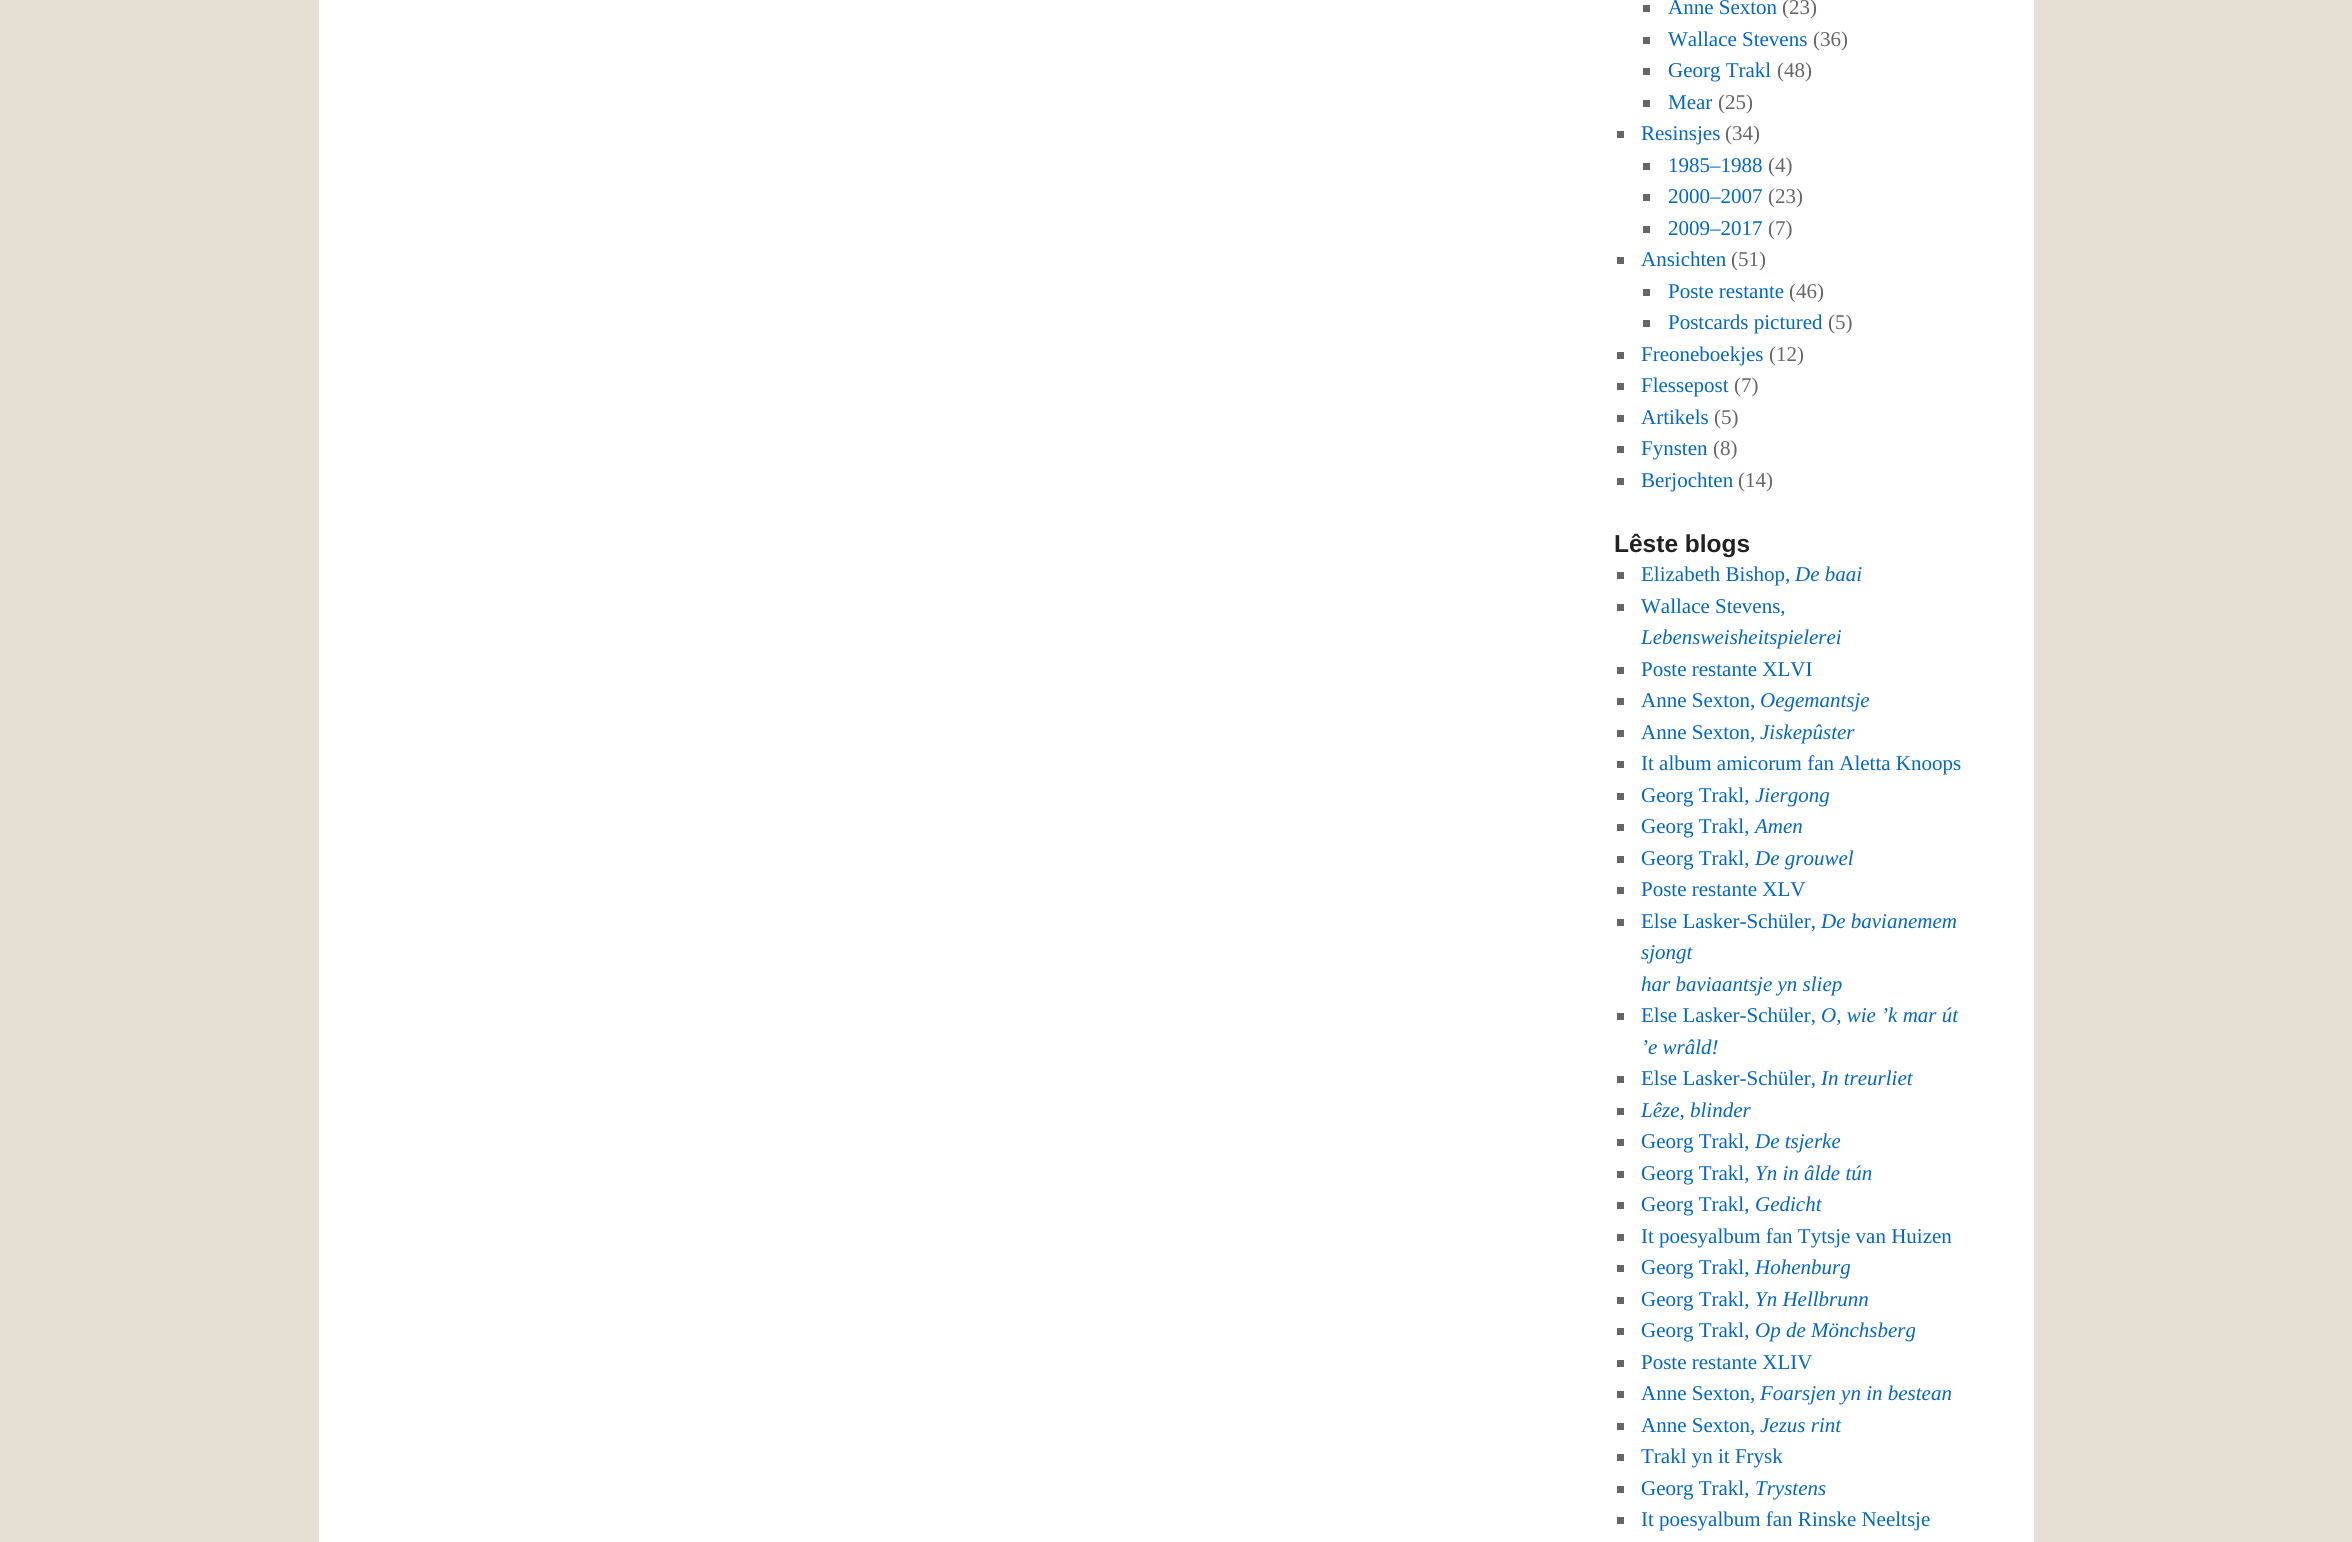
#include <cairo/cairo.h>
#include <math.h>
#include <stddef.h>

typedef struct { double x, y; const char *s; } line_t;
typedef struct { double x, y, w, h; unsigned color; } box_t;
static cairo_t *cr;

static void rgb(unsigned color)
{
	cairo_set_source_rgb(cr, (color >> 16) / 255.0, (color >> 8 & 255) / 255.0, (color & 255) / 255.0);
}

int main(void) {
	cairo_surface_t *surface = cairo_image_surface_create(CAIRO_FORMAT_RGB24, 2352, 1542);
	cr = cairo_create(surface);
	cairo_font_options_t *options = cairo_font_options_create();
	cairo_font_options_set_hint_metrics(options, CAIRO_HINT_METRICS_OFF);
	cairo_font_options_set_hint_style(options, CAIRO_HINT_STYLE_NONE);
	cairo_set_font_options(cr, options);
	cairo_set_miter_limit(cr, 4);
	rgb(0xe5e0d3);
	cairo_paint(cr);
	{
		static const box_t items[] = {
			{319, 0, 1715, 1542, 0xffffff},
			{1643, 5, 7, 7, 0x666666},
			{1643, 37, 7, 7, 0x666666},
			{1643, 68, 7, 7, 0x666666},
			{1643, 100, 7, 7, 0x666666},
			{1617, 131, 7, 7, 0x666666},
			{1643, 163, 7, 7, 0x666666},
			{1643, 194, 7, 7, 0x666666},
			{1643, 226, 7, 7, 0x666666},
			{1617, 257, 7, 7, 0x666666},
			{1643, 289, 7, 7, 0x666666},
			{1643, 320, 7, 7, 0x666666},
			{1617, 352, 7, 7, 0x666666},
			{1617, 383, 7, 7, 0x666666},
			{1617, 415, 7, 7, 0x666666},
			{1617, 446, 7, 7, 0x666666},
			{1617, 478, 7, 7, 0x666666},
			{1617, 572, 7, 7, 0x666666},
			{1617, 604, 7, 7, 0x666666},
			{1617, 667, 7, 7, 0x666666},
			{1617, 698, 7, 7, 0x666666},
			{1617, 730, 7, 7, 0x666666},
			{1617, 761, 7, 7, 0x666666},
			{1617, 793, 7, 7, 0x666666},
			{1617, 824, 7, 7, 0x666666},
			{1617, 856, 7, 7, 0x666666},
			{1617, 887, 7, 7, 0x666666},
			{1617, 919, 7, 7, 0x666666},
			{1617, 1013, 7, 7, 0x666666},
			{1617, 1076, 7, 7, 0x666666},
			{1617, 1108, 7, 7, 0x666666},
			{1617, 1139, 7, 7, 0x666666},
			{1617, 1171, 7, 7, 0x666666},
			{1617, 1202, 7, 7, 0x666666},
			{1617, 1234, 7, 7, 0x666666},
			{1617, 1265, 7, 7, 0x666666},
			{1617, 1297, 7, 7, 0x666666},
			{1617, 1328, 7, 7, 0x666666},
			{1617, 1360, 7, 7, 0x666666},
			{1617, 1391, 7, 7, 0x666666},
			{1617, 1423, 7, 7, 0x666666},
			{1617, 1454, 7, 7, 0x666666},
			{1617, 1486, 7, 7, 0x666666},
			{1617, 1517, 7, 7, 0x666666},
		};
		for (size_t i = 0; i < sizeof items / sizeof *items; i++) {
			rgb(items[i].color);
			cairo_rectangle(cr, items[i].x, items[i].y, items[i].w, items[i].h);
			cairo_fill(cr);
		}
	}
	cairo_select_font_face(cr, "Liberation Serif", CAIRO_FONT_SLANT_NORMAL, CAIRO_FONT_WEIGHT_NORMAL);
	cairo_set_font_size(cr, 21);
	rgb(0x0066cc);
	cairo_move_to(cr, 1668, 14);
	cairo_show_text(cr, "Anne Sexton");
	rgb(0x666666);
	cairo_move_to(cr, 1782, 14);
	cairo_show_text(cr, "(23)");
	rgb(0x0066cc);
	cairo_move_to(cr, 1668, 46);
	cairo_show_text(cr, "Wallace Stevens");
	rgb(0x666666);
	cairo_move_to(cr, 1813, 46);
	cairo_show_text(cr, "(36)");
	rgb(0x0066cc);
	cairo_move_to(cr, 1668, 77);
	cairo_show_text(cr, "Georg Trakl");
	rgb(0x666666);
	cairo_move_to(cr, 1777, 77);
	cairo_show_text(cr, "(48)");
	rgb(0x0066cc);
	cairo_move_to(cr, 1668, 109);
	cairo_show_text(cr, "Mear");
	rgb(0x666666);
	cairo_move_to(cr, 1718, 109);
	cairo_show_text(cr, "(25)");
	rgb(0x0066cc);
	cairo_move_to(cr, 1641, 140);
	cairo_show_text(cr, "Resinsjes");
	rgb(0x666666);
	cairo_move_to(cr, 1725, 140);
	cairo_show_text(cr, "(34)");
	rgb(0x0066cc);
	cairo_move_to(cr, 1668, 172);
	cairo_show_text(cr, "1985–1988");
	rgb(0x666666);
	cairo_move_to(cr, 1768, 172);
	cairo_show_text(cr, "(4)");
	rgb(0x0066cc);
	cairo_move_to(cr, 1668, 203);
	cairo_show_text(cr, "2000–2007");
	rgb(0x666666);
	cairo_move_to(cr, 1768, 203);
	cairo_show_text(cr, "(23)");
	rgb(0x0066cc);
	cairo_move_to(cr, 1668, 235);
	cairo_show_text(cr, "2009–2017");
	rgb(0x666666);
	cairo_move_to(cr, 1768, 235);
	cairo_show_text(cr, "(7)");
	rgb(0x0066cc);
	cairo_move_to(cr, 1641, 266);
	cairo_show_text(cr, "Ansichten");
	rgb(0x666666);
	cairo_move_to(cr, 1731, 266);
	cairo_show_text(cr, "(51)");
	rgb(0x0066cc);
	cairo_move_to(cr, 1668, 298);
	cairo_show_text(cr, "Poste restante");
	rgb(0x666666);
	cairo_move_to(cr, 1789, 298);
	cairo_show_text(cr, "(46)");
	rgb(0x0066cc);
	cairo_move_to(cr, 1668, 329);
	cairo_show_text(cr, "Postcards pictured");
	rgb(0x666666);
	cairo_move_to(cr, 1828, 329);
	cairo_show_text(cr, "(5)");
	rgb(0x0066cc);
	cairo_move_to(cr, 1641, 361);
	cairo_show_text(cr, "Freoneboekjes");
	rgb(0x666666);
	cairo_move_to(cr, 1769, 361);
	cairo_show_text(cr, "(12)");
	rgb(0x0066cc);
	cairo_move_to(cr, 1641, 392);
	cairo_show_text(cr, "Flessepost");
	rgb(0x666666);
	cairo_move_to(cr, 1734, 392);
	cairo_show_text(cr, "(7)");
	rgb(0x0066cc);
	cairo_move_to(cr, 1641, 424);
	cairo_show_text(cr, "Artikels");
	rgb(0x666666);
	cairo_move_to(cr, 1714, 424);
	cairo_show_text(cr, "(5)");
	rgb(0x0066cc);
	cairo_move_to(cr, 1641, 455);
	cairo_show_text(cr, "Fynsten");
	rgb(0x666666);
	cairo_move_to(cr, 1713, 455);
	cairo_show_text(cr, "(8)");
	rgb(0x0066cc);
	cairo_move_to(cr, 1641, 487);
	cairo_show_text(cr, "Berjochten");
	rgb(0x666666);
	cairo_move_to(cr, 1738, 487);
	cairo_show_text(cr, "(14)");
	cairo_select_font_face(cr, "Liberation Sans", CAIRO_FONT_SLANT_NORMAL, CAIRO_FONT_WEIGHT_BOLD);
	cairo_set_font_size(cr, 24.5);
	rgb(0x222222);
	cairo_move_to(cr, 1614, 552);
	cairo_show_text(cr, "Lêste blogs");
	cairo_select_font_face(cr, "Liberation Serif", CAIRO_FONT_SLANT_NORMAL, CAIRO_FONT_WEIGHT_NORMAL);
	cairo_set_font_size(cr, 21);
	rgb(0x0066cc);
	cairo_move_to(cr, 1641, 581);
	cairo_show_text(cr, "Elizabeth Bishop,");
	cairo_select_font_face(cr, "Liberation Serif", CAIRO_FONT_SLANT_ITALIC, CAIRO_FONT_WEIGHT_NORMAL);
	cairo_move_to(cr, 1795, 581);
	cairo_show_text(cr, "De baai");
	cairo_select_font_face(cr, "Liberation Serif", CAIRO_FONT_SLANT_NORMAL, CAIRO_FONT_WEIGHT_NORMAL);
	cairo_move_to(cr, 1641, 613);
	cairo_show_text(cr, "Wallace Stevens,");
	cairo_select_font_face(cr, "Liberation Serif", CAIRO_FONT_SLANT_ITALIC, CAIRO_FONT_WEIGHT_NORMAL);
	cairo_move_to(cr, 1641, 644);
	cairo_show_text(cr, "Lebensweisheitspielerei");
	cairo_select_font_face(cr, "Liberation Serif", CAIRO_FONT_SLANT_NORMAL, CAIRO_FONT_WEIGHT_NORMAL);
	cairo_move_to(cr, 1641, 676);
	cairo_show_text(cr, "Poste restante XLVI");
	cairo_move_to(cr, 1641, 707);
	cairo_show_text(cr, "Anne Sexton,");
	cairo_select_font_face(cr, "Liberation Serif", CAIRO_FONT_SLANT_ITALIC, CAIRO_FONT_WEIGHT_NORMAL);
	cairo_move_to(cr, 1760, 707);
	cairo_show_text(cr, "Oegemantsje");
	cairo_select_font_face(cr, "Liberation Serif", CAIRO_FONT_SLANT_NORMAL, CAIRO_FONT_WEIGHT_NORMAL);
	cairo_move_to(cr, 1641, 739);
	cairo_show_text(cr, "Anne Sexton,");
	cairo_select_font_face(cr, "Liberation Serif", CAIRO_FONT_SLANT_ITALIC, CAIRO_FONT_WEIGHT_NORMAL);
	cairo_move_to(cr, 1760, 739);
	cairo_show_text(cr, "Jiskepûster");
	cairo_select_font_face(cr, "Liberation Serif", CAIRO_FONT_SLANT_NORMAL, CAIRO_FONT_WEIGHT_NORMAL);
	cairo_move_to(cr, 1641, 770);
	cairo_show_text(cr, "It album amicorum fan Aletta Knoops");
	cairo_move_to(cr, 1641, 802);
	cairo_show_text(cr, "Georg Trakl,");
	cairo_select_font_face(cr, "Liberation Serif", CAIRO_FONT_SLANT_ITALIC, CAIRO_FONT_WEIGHT_NORMAL);
	cairo_move_to(cr, 1755, 802);
	cairo_show_text(cr, "Jiergong");
	cairo_select_font_face(cr, "Liberation Serif", CAIRO_FONT_SLANT_NORMAL, CAIRO_FONT_WEIGHT_NORMAL);
	cairo_move_to(cr, 1641, 833);
	cairo_show_text(cr, "Georg Trakl,");
	cairo_select_font_face(cr, "Liberation Serif", CAIRO_FONT_SLANT_ITALIC, CAIRO_FONT_WEIGHT_NORMAL);
	cairo_move_to(cr, 1755, 833);
	cairo_show_text(cr, "Amen");
	cairo_select_font_face(cr, "Liberation Serif", CAIRO_FONT_SLANT_NORMAL, CAIRO_FONT_WEIGHT_NORMAL);
	cairo_move_to(cr, 1641, 865);
	cairo_show_text(cr, "Georg Trakl,");
	cairo_select_font_face(cr, "Liberation Serif", CAIRO_FONT_SLANT_ITALIC, CAIRO_FONT_WEIGHT_NORMAL);
	cairo_move_to(cr, 1755, 865);
	cairo_show_text(cr, "De grouwel");
	cairo_select_font_face(cr, "Liberation Serif", CAIRO_FONT_SLANT_NORMAL, CAIRO_FONT_WEIGHT_NORMAL);
	cairo_move_to(cr, 1641, 896);
	cairo_show_text(cr, "Poste restante XLV");
	cairo_move_to(cr, 1641, 928);
	cairo_show_text(cr, "Else Lasker-Schüler,");
	cairo_select_font_face(cr, "Liberation Serif", CAIRO_FONT_SLANT_ITALIC, CAIRO_FONT_WEIGHT_NORMAL);
	{
		static const line_t items[] = {
			{1821, 928, "De bavianemem"},
			{1641, 959, "sjongt"},
			{1641, 991, "har baviaantsje yn sliep"},
		};
		for (size_t i = 0; i < sizeof items / sizeof *items; i++) {
			cairo_move_to(cr, items[i].x, items[i].y);
			cairo_show_text(cr, items[i].s);
		}
	}
	cairo_select_font_face(cr, "Liberation Serif", CAIRO_FONT_SLANT_NORMAL, CAIRO_FONT_WEIGHT_NORMAL);
	cairo_move_to(cr, 1641, 1022);
	cairo_show_text(cr, "Else Lasker-Schüler,");
	cairo_select_font_face(cr, "Liberation Serif", CAIRO_FONT_SLANT_ITALIC, CAIRO_FONT_WEIGHT_NORMAL);
	cairo_move_to(cr, 1821, 1022);
	cairo_show_text(cr, "O, wie ’k mar út");
	cairo_move_to(cr, 1641, 1054);
	cairo_show_text(cr, "’e wrâld!");
	cairo_select_font_face(cr, "Liberation Serif", CAIRO_FONT_SLANT_NORMAL, CAIRO_FONT_WEIGHT_NORMAL);
	cairo_move_to(cr, 1641, 1085);
	cairo_show_text(cr, "Else Lasker-Schüler,");
	cairo_select_font_face(cr, "Liberation Serif", CAIRO_FONT_SLANT_ITALIC, CAIRO_FONT_WEIGHT_NORMAL);
	cairo_move_to(cr, 1821, 1085);
	cairo_show_text(cr, "In treurliet");
	cairo_move_to(cr, 1641, 1117);
	cairo_show_text(cr, "Lêze, blinder");
	cairo_select_font_face(cr, "Liberation Serif", CAIRO_FONT_SLANT_NORMAL, CAIRO_FONT_WEIGHT_NORMAL);
	cairo_move_to(cr, 1641, 1148);
	cairo_show_text(cr, "Georg Trakl,");
	cairo_select_font_face(cr, "Liberation Serif", CAIRO_FONT_SLANT_ITALIC, CAIRO_FONT_WEIGHT_NORMAL);
	cairo_move_to(cr, 1755, 1148);
	cairo_show_text(cr, "De tsjerke");
	cairo_select_font_face(cr, "Liberation Serif", CAIRO_FONT_SLANT_NORMAL, CAIRO_FONT_WEIGHT_NORMAL);
	cairo_move_to(cr, 1641, 1180);
	cairo_show_text(cr, "Georg Trakl,");
	cairo_select_font_face(cr, "Liberation Serif", CAIRO_FONT_SLANT_ITALIC, CAIRO_FONT_WEIGHT_NORMAL);
	cairo_move_to(cr, 1755, 1180);
	cairo_show_text(cr, "Yn in âlde tún");
	cairo_select_font_face(cr, "Liberation Serif", CAIRO_FONT_SLANT_NORMAL, CAIRO_FONT_WEIGHT_NORMAL);
	cairo_move_to(cr, 1641, 1211);
	cairo_show_text(cr, "Georg Trakl,");
	cairo_select_font_face(cr, "Liberation Serif", CAIRO_FONT_SLANT_ITALIC, CAIRO_FONT_WEIGHT_NORMAL);
	cairo_move_to(cr, 1755, 1211);
	cairo_show_text(cr, "Gedicht");
	cairo_select_font_face(cr, "Liberation Serif", CAIRO_FONT_SLANT_NORMAL, CAIRO_FONT_WEIGHT_NORMAL);
	cairo_move_to(cr, 1641, 1243);
	cairo_show_text(cr, "It poesyalbum fan Tytsje van Huizen");
	cairo_move_to(cr, 1641, 1274);
	cairo_show_text(cr, "Georg Trakl,");
	cairo_select_font_face(cr, "Liberation Serif", CAIRO_FONT_SLANT_ITALIC, CAIRO_FONT_WEIGHT_NORMAL);
	cairo_move_to(cr, 1755, 1274);
	cairo_show_text(cr, "Hohenburg");
	cairo_select_font_face(cr, "Liberation Serif", CAIRO_FONT_SLANT_NORMAL, CAIRO_FONT_WEIGHT_NORMAL);
	cairo_move_to(cr, 1641, 1306);
	cairo_show_text(cr, "Georg Trakl,");
	cairo_select_font_face(cr, "Liberation Serif", CAIRO_FONT_SLANT_ITALIC, CAIRO_FONT_WEIGHT_NORMAL);
	cairo_move_to(cr, 1755, 1306);
	cairo_show_text(cr, "Yn Hellbrunn");
	cairo_select_font_face(cr, "Liberation Serif", CAIRO_FONT_SLANT_NORMAL, CAIRO_FONT_WEIGHT_NORMAL);
	cairo_move_to(cr, 1641, 1337);
	cairo_show_text(cr, "Georg Trakl,");
	cairo_select_font_face(cr, "Liberation Serif", CAIRO_FONT_SLANT_ITALIC, CAIRO_FONT_WEIGHT_NORMAL);
	cairo_move_to(cr, 1755, 1337);
	cairo_show_text(cr, "Op de Mönchsberg");
	cairo_select_font_face(cr, "Liberation Serif", CAIRO_FONT_SLANT_NORMAL, CAIRO_FONT_WEIGHT_NORMAL);
	cairo_move_to(cr, 1641, 1369);
	cairo_show_text(cr, "Poste restante XLIV");
	cairo_move_to(cr, 1641, 1400);
	cairo_show_text(cr, "Anne Sexton,");
	cairo_select_font_face(cr, "Liberation Serif", CAIRO_FONT_SLANT_ITALIC, CAIRO_FONT_WEIGHT_NORMAL);
	cairo_move_to(cr, 1760, 1400);
	cairo_show_text(cr, "Foarsjen yn in bestean");
	cairo_select_font_face(cr, "Liberation Serif", CAIRO_FONT_SLANT_NORMAL, CAIRO_FONT_WEIGHT_NORMAL);
	cairo_move_to(cr, 1641, 1432);
	cairo_show_text(cr, "Anne Sexton,");
	cairo_select_font_face(cr, "Liberation Serif", CAIRO_FONT_SLANT_ITALIC, CAIRO_FONT_WEIGHT_NORMAL);
	cairo_move_to(cr, 1760, 1432);
	cairo_show_text(cr, "Jezus rint");
	cairo_select_font_face(cr, "Liberation Serif", CAIRO_FONT_SLANT_NORMAL, CAIRO_FONT_WEIGHT_NORMAL);
	cairo_move_to(cr, 1641, 1463);
	cairo_show_text(cr, "Trakl yn it Frysk");
	cairo_move_to(cr, 1641, 1495);
	cairo_show_text(cr, "Georg Trakl,");
	cairo_select_font_face(cr, "Liberation Serif", CAIRO_FONT_SLANT_ITALIC, CAIRO_FONT_WEIGHT_NORMAL);
	cairo_move_to(cr, 1755, 1495);
	cairo_show_text(cr, "Trystens");
	cairo_select_font_face(cr, "Liberation Serif", CAIRO_FONT_SLANT_NORMAL, CAIRO_FONT_WEIGHT_NORMAL);
	cairo_move_to(cr, 1641, 1526);
	cairo_show_text(cr, "It poesyalbum fan Rinske Neeltsje");
	cairo_surface_write_to_png(surface, "page.png");
	cairo_font_options_destroy(options);
	cairo_destroy(cr);
	cairo_surface_destroy(surface);
	return 0;
}
